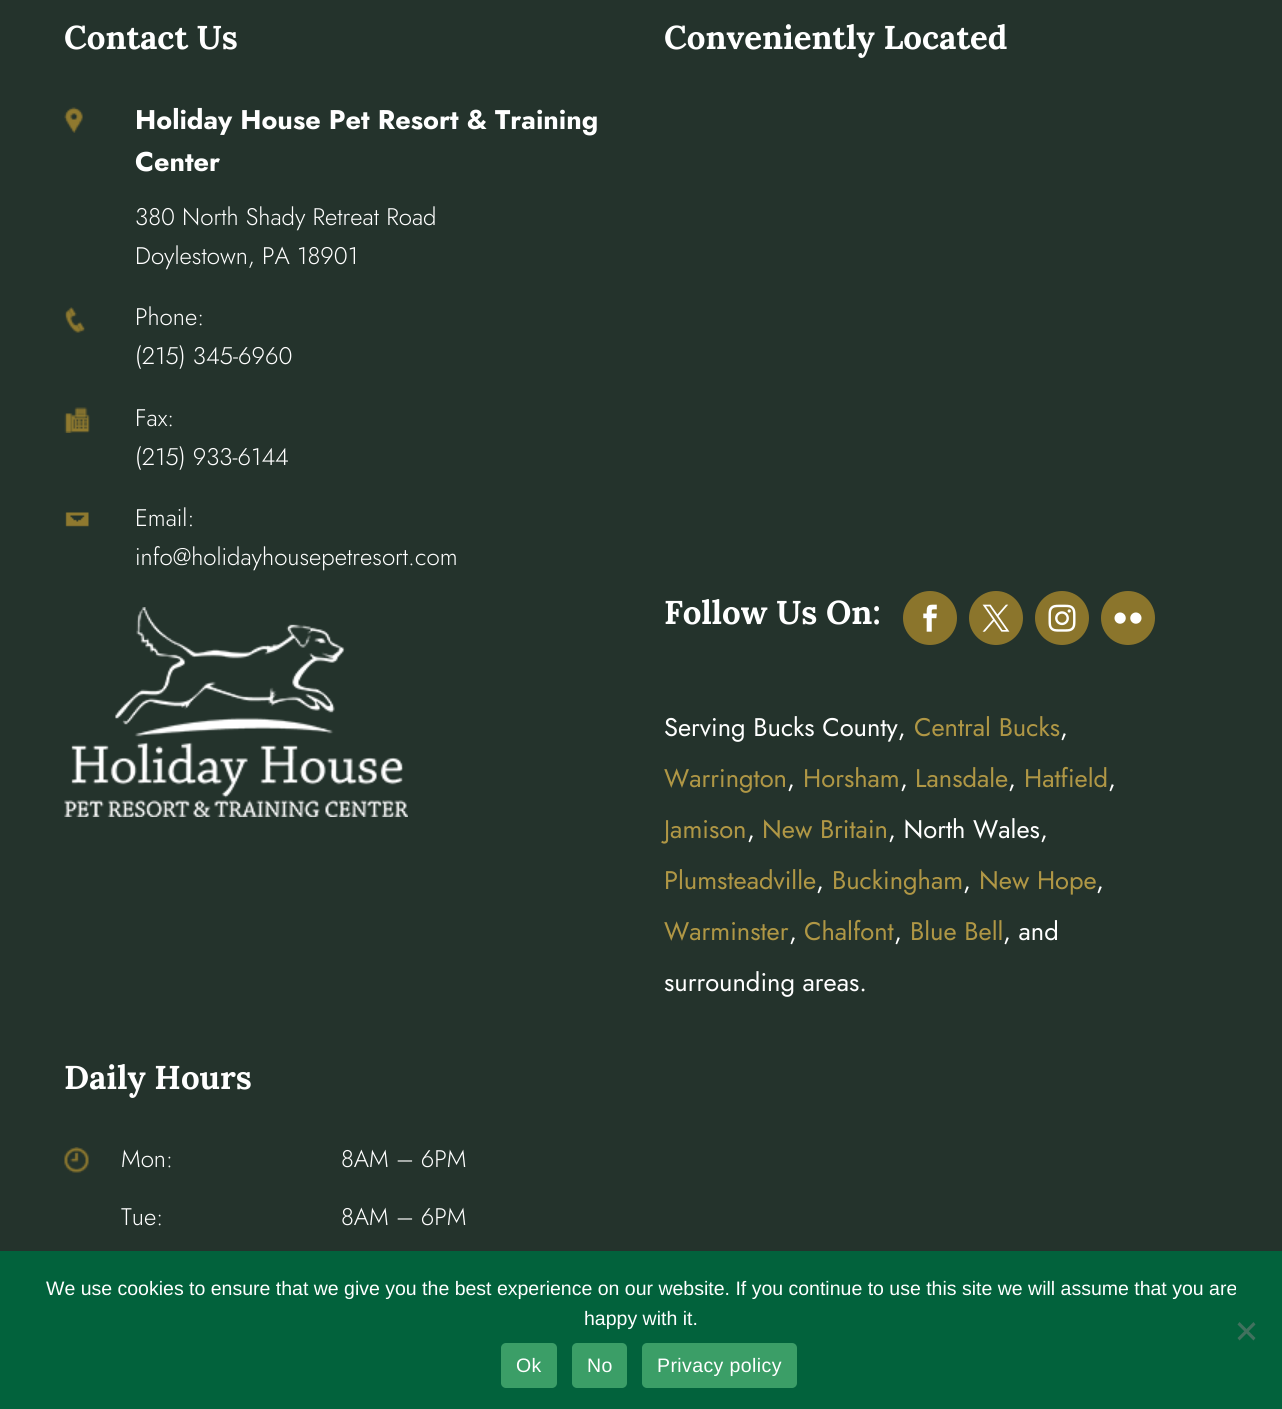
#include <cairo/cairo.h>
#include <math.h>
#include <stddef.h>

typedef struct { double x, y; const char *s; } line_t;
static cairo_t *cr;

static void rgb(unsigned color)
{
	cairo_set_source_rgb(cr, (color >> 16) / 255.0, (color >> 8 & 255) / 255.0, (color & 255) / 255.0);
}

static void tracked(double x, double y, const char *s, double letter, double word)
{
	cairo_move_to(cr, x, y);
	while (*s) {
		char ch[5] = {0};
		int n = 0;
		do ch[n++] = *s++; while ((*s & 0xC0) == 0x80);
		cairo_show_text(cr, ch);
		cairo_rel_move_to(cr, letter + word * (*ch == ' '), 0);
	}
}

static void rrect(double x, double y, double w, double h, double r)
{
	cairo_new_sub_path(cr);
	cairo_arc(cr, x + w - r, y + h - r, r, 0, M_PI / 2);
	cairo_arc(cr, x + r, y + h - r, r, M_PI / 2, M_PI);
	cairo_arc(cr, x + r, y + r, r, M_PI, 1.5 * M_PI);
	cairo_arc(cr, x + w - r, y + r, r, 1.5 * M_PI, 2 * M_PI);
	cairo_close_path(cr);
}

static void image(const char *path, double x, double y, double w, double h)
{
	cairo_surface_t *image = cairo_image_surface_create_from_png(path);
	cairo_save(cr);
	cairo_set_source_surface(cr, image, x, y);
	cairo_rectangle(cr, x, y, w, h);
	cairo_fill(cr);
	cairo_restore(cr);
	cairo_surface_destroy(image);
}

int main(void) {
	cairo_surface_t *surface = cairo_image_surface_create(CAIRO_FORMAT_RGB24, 1282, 1409);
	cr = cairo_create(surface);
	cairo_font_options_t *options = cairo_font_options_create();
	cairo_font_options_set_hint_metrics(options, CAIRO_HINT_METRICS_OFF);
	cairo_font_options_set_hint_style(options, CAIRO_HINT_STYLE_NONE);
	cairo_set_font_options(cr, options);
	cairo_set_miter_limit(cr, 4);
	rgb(0x24332c);
	cairo_paint(cr);
	image("img/1.png", 64, 107, 19, 26);
	image("img/2.png", 65, 307, 20, 26);
	image("img/3.png", 64, 407, 26, 26);
	image("img/4.png", 65, 512, 24, 15);
	image("img/5.png", 64, 607, 344, 210);
	rgb(0x8b752c);
	cairo_arc(cr, 930, 618, 27, 0, 2 * M_PI);
	cairo_fill(cr);
	image("img/6.png", 923, 604, 14, 28);
	cairo_arc(cr, 996, 618, 27, 0, 2 * M_PI);
	cairo_fill(cr);
	image("img/7.png", 982, 604, 28, 28);
	cairo_arc(cr, 1062, 618, 27, 0, 2 * M_PI);
	cairo_fill(cr);
	image("img/8.png", 1048, 604, 28, 28);
	cairo_arc(cr, 1128, 618, 27, 0, 2 * M_PI);
	cairo_fill(cr);
	image("img/9.png", 1114, 612, 28, 12);
	image("img/10.png", 64, 1147, 25, 26);
	rgb(0x02623c);
	cairo_rectangle(cr, 0, 1251, 1282, 158);
	cairo_fill(cr);
	rgb(0x41715e);
	cairo_new_path(cr);
	cairo_move_to(cr, 1253.5, 1322);
	cairo_line_to(cr, 1255.5, 1324.5);
	cairo_line_to(cr, 1239.5, 1340.5);
	cairo_line_to(cr, 1237.5, 1338);
	cairo_close_path(cr);
	cairo_fill(cr);
	cairo_new_path(cr);
	cairo_move_to(cr, 1237.5, 1324.5);
	cairo_line_to(cr, 1239.5, 1322);
	cairo_line_to(cr, 1255.5, 1338);
	cairo_line_to(cr, 1253.5, 1340.5);
	cairo_close_path(cr);
	cairo_fill(cr);
	rgb(0x3b9e67);
	rrect(501, 1343, 56, 45, 5);
	cairo_fill(cr);
	rrect(572, 1343, 55, 45, 5);
	cairo_fill(cr);
	rrect(642, 1343, 155, 45, 5);
	cairo_fill(cr);
	cairo_select_font_face(cr, "Lora", CAIRO_FONT_SLANT_NORMAL, CAIRO_FONT_WEIGHT_BOLD);
	cairo_set_font_size(cr, 33);
	rgb(0xffffff);
	cairo_move_to(cr, 64, 49);
	cairo_show_text(cr, "Contact Us");
	cairo_select_font_face(cr, "Jost", CAIRO_FONT_SLANT_NORMAL, CAIRO_FONT_WEIGHT_BOLD);
	cairo_set_font_size(cr, 27);
	cairo_move_to(cr, 135, 129);
	cairo_show_text(cr, "Holiday House Pet Resort & Training");
	cairo_move_to(cr, 135, 171);
	cairo_show_text(cr, "Center");
	cairo_select_font_face(cr, "Jost Light", CAIRO_FONT_SLANT_NORMAL, CAIRO_FONT_WEIGHT_NORMAL);
	cairo_set_font_size(cr, 24);
	{
		static const line_t items[] = {
			{135, 225, "380 North Shady Retreat Road"},
			{135, 264, "Doylestown, PA 18901"},
			{135, 325, "Phone:"},
			{135, 364, "(215) 345-6960"},
			{135, 426, "Fax:"},
			{135, 465, "(215) 933-6144"},
			{135, 526, "Email:"},
			{135, 565, "info@holidayhousepetresort.com"},
		};
		for (size_t i = 0; i < sizeof items / sizeof *items; i++) {
			cairo_move_to(cr, items[i].x, items[i].y);
			cairo_show_text(cr, items[i].s);
		}
	}
	cairo_select_font_face(cr, "Lora", CAIRO_FONT_SLANT_NORMAL, CAIRO_FONT_WEIGHT_BOLD);
	cairo_set_font_size(cr, 33);
	cairo_move_to(cr, 664, 49);
	cairo_show_text(cr, "Conveniently Located");
	cairo_move_to(cr, 664, 624);
	cairo_show_text(cr, "Follow Us On:");
	cairo_select_font_face(cr, "Jost", CAIRO_FONT_SLANT_NORMAL, CAIRO_FONT_WEIGHT_NORMAL);
	cairo_set_font_size(cr, 25.5);
	cairo_move_to(cr, 664, 736);
	cairo_show_text(cr, "Serving Bucks County,");
	rgb(0xb09745);
	cairo_move_to(cr, 914, 736);
	cairo_show_text(cr, "Central Bucks");
	rgb(0xffffff);
	cairo_move_to(cr, 1060, 736);
	cairo_show_text(cr, ",");
	rgb(0xb09745);
	cairo_move_to(cr, 664, 787);
	cairo_show_text(cr, "Warrington");
	rgb(0xffffff);
	cairo_move_to(cr, 787, 787);
	cairo_show_text(cr, ",");
	rgb(0xb09745);
	cairo_move_to(cr, 803, 787);
	cairo_show_text(cr, "Horsham");
	rgb(0xffffff);
	cairo_move_to(cr, 900, 787);
	cairo_show_text(cr, ",");
	rgb(0xb09745);
	cairo_move_to(cr, 915, 787);
	cairo_show_text(cr, "Lansdale");
	rgb(0xffffff);
	cairo_move_to(cr, 1008, 787);
	cairo_show_text(cr, ",");
	rgb(0xb09745);
	cairo_move_to(cr, 1024, 787);
	cairo_show_text(cr, "Hatfield");
	rgb(0xffffff);
	cairo_move_to(cr, 1108, 787);
	cairo_show_text(cr, ",");
	rgb(0xb09745);
	cairo_move_to(cr, 664, 838);
	cairo_show_text(cr, "Jamison");
	rgb(0xffffff);
	cairo_move_to(cr, 747, 838);
	cairo_show_text(cr, ",");
	rgb(0xb09745);
	cairo_move_to(cr, 762, 838);
	cairo_show_text(cr, "New Britain");
	rgb(0xffffff);
	cairo_move_to(cr, 888, 838);
	cairo_show_text(cr, ", North Wales,");
	rgb(0xb09745);
	cairo_move_to(cr, 664, 889);
	cairo_show_text(cr, "Plumsteadville");
	rgb(0xffffff);
	cairo_move_to(cr, 816, 889);
	cairo_show_text(cr, ",");
	rgb(0xb09745);
	cairo_move_to(cr, 832, 889);
	cairo_show_text(cr, "Buckingham");
	rgb(0xffffff);
	cairo_move_to(cr, 963, 889);
	cairo_show_text(cr, ",");
	rgb(0xb09745);
	cairo_move_to(cr, 979, 889);
	cairo_show_text(cr, "New Hope");
	rgb(0xffffff);
	cairo_move_to(cr, 1096, 889);
	cairo_show_text(cr, ",");
	rgb(0xb09745);
	cairo_move_to(cr, 664, 940);
	cairo_show_text(cr, "Warminster");
	rgb(0xffffff);
	cairo_move_to(cr, 789, 940);
	cairo_show_text(cr, ",");
	rgb(0xb09745);
	cairo_move_to(cr, 804, 940);
	cairo_show_text(cr, "Chalfont");
	rgb(0xffffff);
	cairo_move_to(cr, 894, 940);
	cairo_show_text(cr, ",");
	rgb(0xb09745);
	cairo_move_to(cr, 910, 940);
	cairo_show_text(cr, "Blue Bell");
	rgb(0xffffff);
	cairo_move_to(cr, 1003, 940);
	cairo_show_text(cr, ", and");
	cairo_move_to(cr, 664, 991);
	cairo_show_text(cr, "surrounding areas.");
	cairo_select_font_face(cr, "Lora", CAIRO_FONT_SLANT_NORMAL, CAIRO_FONT_WEIGHT_BOLD);
	cairo_set_font_size(cr, 33);
	cairo_move_to(cr, 64, 1089);
	cairo_show_text(cr, "Daily Hours");
	cairo_select_font_face(cr, "Jost Light", CAIRO_FONT_SLANT_NORMAL, CAIRO_FONT_WEIGHT_NORMAL);
	cairo_set_font_size(cr, 24);
	{
		static const line_t items[] = {
			{121, 1167, "Mon:"},
			{341, 1167, "8AM – 6PM"},
			{121, 1225, "Tue:"},
			{341, 1225, "8AM – 6PM"},
		};
		for (size_t i = 0; i < sizeof items / sizeof *items; i++) {
			cairo_move_to(cr, items[i].x, items[i].y);
			cairo_show_text(cr, items[i].s);
		}
	}
	cairo_select_font_face(cr, "Liberation Sans", CAIRO_FONT_SLANT_NORMAL, CAIRO_FONT_WEIGHT_NORMAL);
	cairo_set_font_size(cr, 19.5);
	cairo_move_to(cr, 46, 1295);
	cairo_show_text(cr, "We use cookies to ensure that we give you the best experience on our website. If you continue to use this site we will assume that you are");
	cairo_move_to(cr, 584, 1325);
	cairo_show_text(cr, "happy with it.");
	{
		static const line_t items[] = {
			{516, 1372, "Ok"},
			{587, 1372, "No"},
			{657, 1372, "Privacy policy"},
		};
		for (size_t i = 0; i < sizeof items / sizeof *items; i++) {
			tracked(items[i].x, items[i].y, items[i].s, 0.4, 0);
		}
	}
	cairo_surface_write_to_png(surface, "page.png");
	cairo_font_options_destroy(options);
	cairo_destroy(cr);
	cairo_surface_destroy(surface);
	return 0;
}
